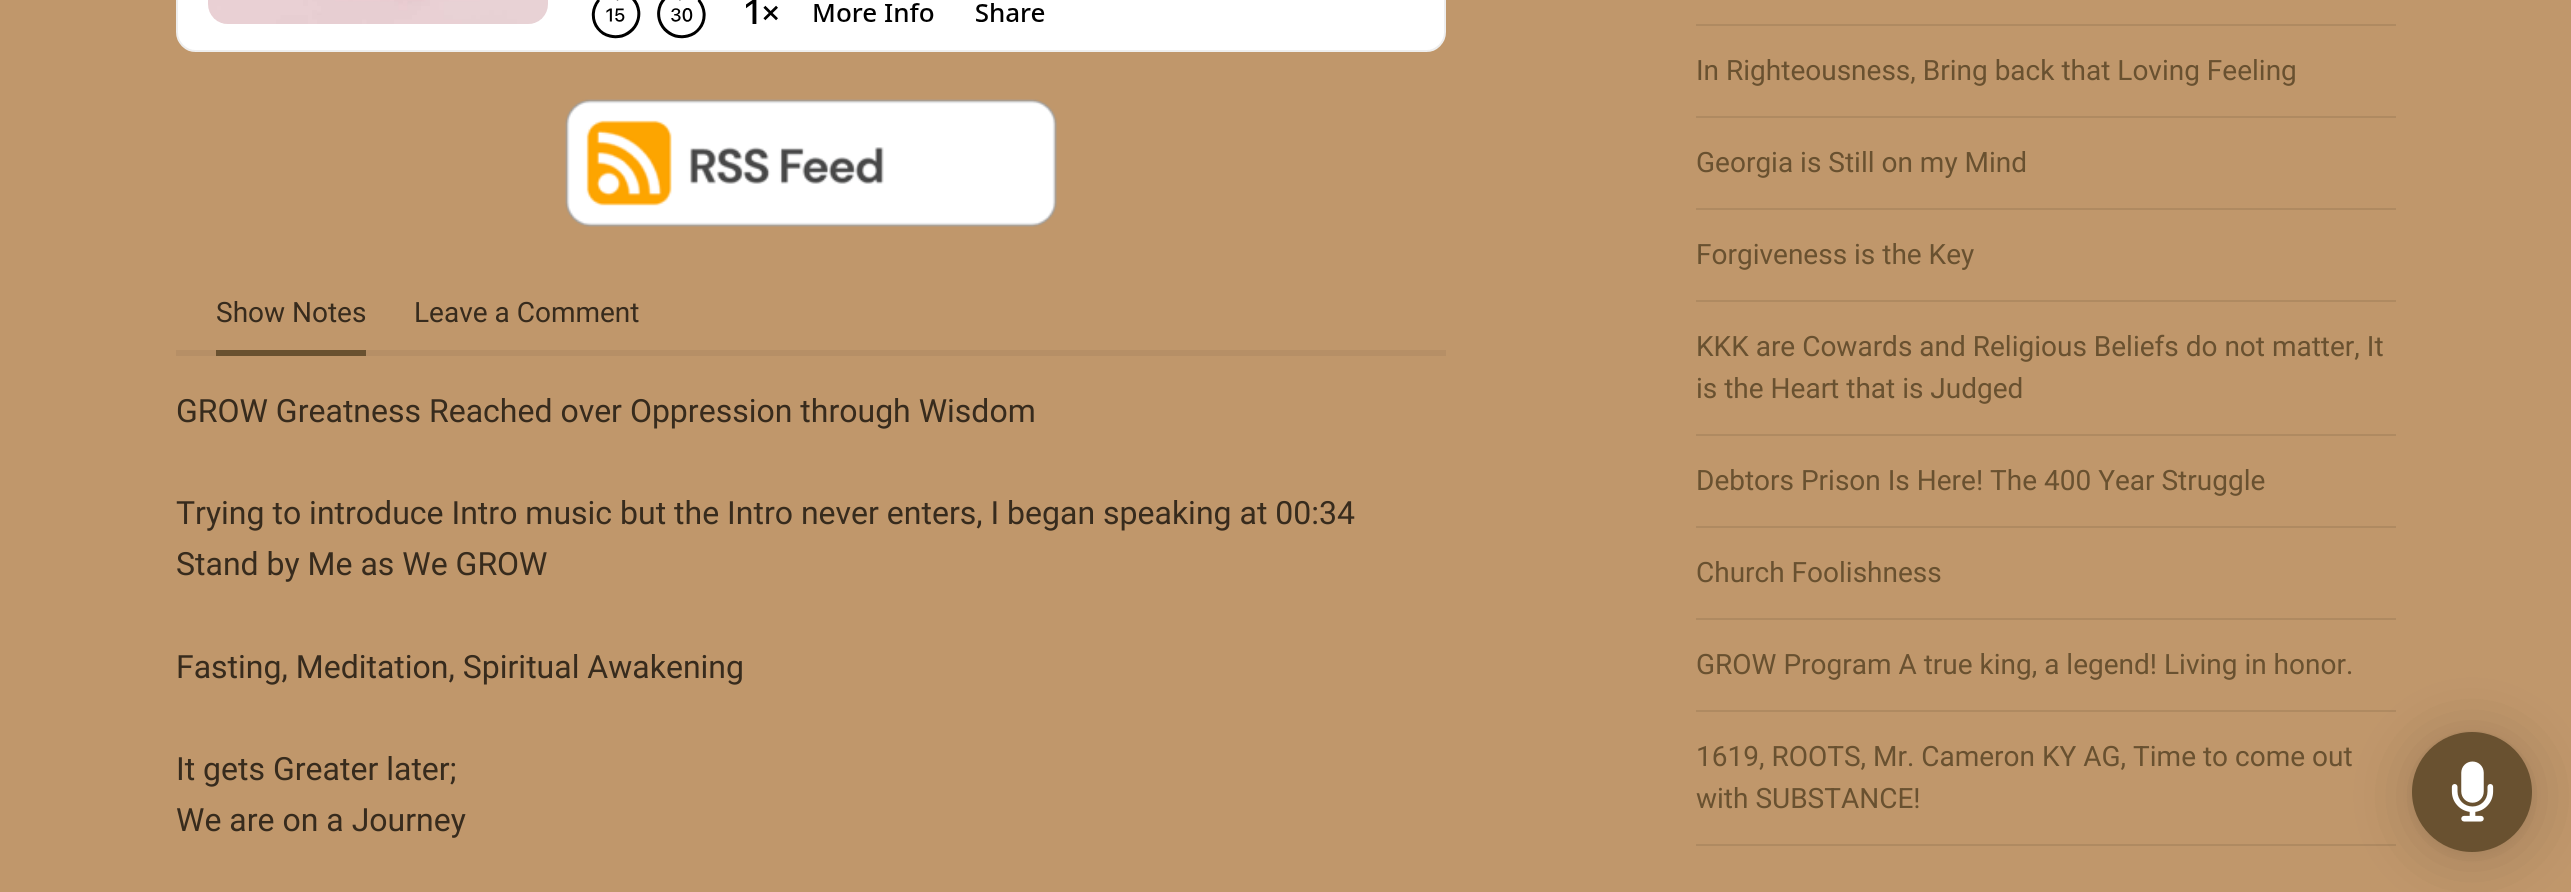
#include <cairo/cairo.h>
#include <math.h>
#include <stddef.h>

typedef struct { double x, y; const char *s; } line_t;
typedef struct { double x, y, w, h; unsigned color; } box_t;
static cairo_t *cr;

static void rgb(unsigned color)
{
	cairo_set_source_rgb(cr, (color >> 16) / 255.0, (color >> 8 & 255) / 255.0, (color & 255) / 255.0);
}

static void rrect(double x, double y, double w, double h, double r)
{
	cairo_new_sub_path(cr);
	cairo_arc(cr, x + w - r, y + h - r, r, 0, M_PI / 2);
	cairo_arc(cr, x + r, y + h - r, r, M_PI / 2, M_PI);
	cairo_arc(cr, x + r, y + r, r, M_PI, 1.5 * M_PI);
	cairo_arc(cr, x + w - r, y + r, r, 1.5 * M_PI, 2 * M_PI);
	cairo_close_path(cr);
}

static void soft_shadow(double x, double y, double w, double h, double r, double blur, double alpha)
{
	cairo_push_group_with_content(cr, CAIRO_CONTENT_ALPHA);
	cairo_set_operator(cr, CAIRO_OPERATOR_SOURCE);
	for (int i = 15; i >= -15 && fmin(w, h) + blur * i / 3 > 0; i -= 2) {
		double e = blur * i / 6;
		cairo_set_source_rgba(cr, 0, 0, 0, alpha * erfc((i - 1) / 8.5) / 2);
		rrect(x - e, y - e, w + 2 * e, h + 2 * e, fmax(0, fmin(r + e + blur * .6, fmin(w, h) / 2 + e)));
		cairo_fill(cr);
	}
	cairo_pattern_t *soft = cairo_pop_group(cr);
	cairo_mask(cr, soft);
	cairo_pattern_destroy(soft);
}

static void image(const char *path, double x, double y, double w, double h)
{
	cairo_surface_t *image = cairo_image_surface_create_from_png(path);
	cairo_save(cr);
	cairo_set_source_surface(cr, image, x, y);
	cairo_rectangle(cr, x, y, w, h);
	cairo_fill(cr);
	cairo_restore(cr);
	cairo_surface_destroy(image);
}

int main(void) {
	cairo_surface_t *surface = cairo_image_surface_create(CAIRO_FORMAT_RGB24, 2571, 892);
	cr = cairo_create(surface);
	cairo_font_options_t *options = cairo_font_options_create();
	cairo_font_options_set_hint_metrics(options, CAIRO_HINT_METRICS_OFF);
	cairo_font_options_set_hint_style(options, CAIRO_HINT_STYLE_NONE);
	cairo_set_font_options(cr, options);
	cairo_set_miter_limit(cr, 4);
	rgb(0xc0976b);
	cairo_paint(cr);
	image("img/1.png", 176, 0, 1270, 52);
	image("img/2.png", 565, 99, 492, 128);
	{
		static const box_t items[] = {
			{176, 350, 1270, 6, 0xb68f66},
			{216, 350, 150, 6, 0x695130},
			{1696, 24, 700, 2, 0xaf8a61},
			{1696, 116, 700, 2, 0xaf8a61},
			{1696, 208, 700, 2, 0xaf8a61},
			{1696, 300, 700, 2, 0xaf8a61},
			{1696, 434, 700, 2, 0xaf8a61},
			{1696, 526, 700, 2, 0xaf8a61},
			{1696, 618, 700, 2, 0xaf8a61},
			{1696, 710, 700, 2, 0xaf8a61},
			{1696, 844, 700, 2, 0xaf8a61},
		};
		for (size_t i = 0; i < sizeof items / sizeof *items; i++) {
			rgb(items[i].color);
			cairo_rectangle(cr, items[i].x, items[i].y, items[i].w, items[i].h);
			cairo_fill(cr);
		}
	}
	rgb(0x000000);
	soft_shadow(2412, 736, 120, 120, 60, 32, 0.16);
	soft_shadow(2412, 734, 120, 120, 60, 6, 0.06);
	rgb(0x695130);
	cairo_arc(cr, 2472, 792, 59, 0, 2 * M_PI);
	cairo_fill_preserve(cr);
	cairo_stroke(cr);
	image("img/3.png", 2451, 761, 43, 61);
	cairo_select_font_face(cr, "Roboto", CAIRO_FONT_SLANT_NORMAL, CAIRO_FONT_WEIGHT_NORMAL);
	cairo_set_font_size(cr, 28);
	rgb(0x372b1d);
	cairo_move_to(cr, 216, 322);
	cairo_show_text(cr, "Show Notes");
	cairo_move_to(cr, 414, 322);
	cairo_show_text(cr, "Leave a Comment");
	cairo_set_font_size(cr, 32);
	{
		static const line_t items[] = {
			{176, 422, "GROW Greatness Reached over Oppression through Wisdom"},
			{176, 524, "Trying to introduce Intro music but the Intro never enters, I began speaking at 00:34"},
			{176, 575, "Stand by Me as We GROW"},
			{176, 678, "Fasting, Meditation, Spiritual Awakening"},
			{176, 780, "It gets Greater later;"},
			{176, 831, "We are on a Journey"},
		};
		for (size_t i = 0; i < sizeof items / sizeof *items; i++) {
			cairo_move_to(cr, items[i].x, items[i].y);
			cairo_show_text(cr, items[i].s);
		}
	}
	cairo_set_font_size(cr, 28);
	rgb(0x695130);
	{
		static const line_t items[] = {
			{1696, 80, "In Righteousness, Bring back that Loving Feeling"},
			{1696, 172, "Georgia is Still on my Mind"},
			{1696, 264, "Forgiveness is the Key"},
			{1696, 356, "KKK are Cowards and Religious Beliefs do not matter, It"},
			{1696, 398, "is the Heart that is Judged"},
			{1696, 490, "Debtors Prison Is Here! The 400 Year Struggle"},
			{1696, 582, "Church Foolishness"},
			{1696, 674, "GROW Program A true king, a legend! Living in honor."},
			{1696, 766, "1619, ROOTS, Mr. Cameron KY AG, Time to come out"},
			{1696, 808, "with SUBSTANCE!"},
		};
		for (size_t i = 0; i < sizeof items / sizeof *items; i++) {
			cairo_move_to(cr, items[i].x, items[i].y);
			cairo_show_text(cr, items[i].s);
		}
	}
	cairo_surface_write_to_png(surface, "page.png");
	cairo_font_options_destroy(options);
	cairo_destroy(cr);
	cairo_surface_destroy(surface);
	return 0;
}
